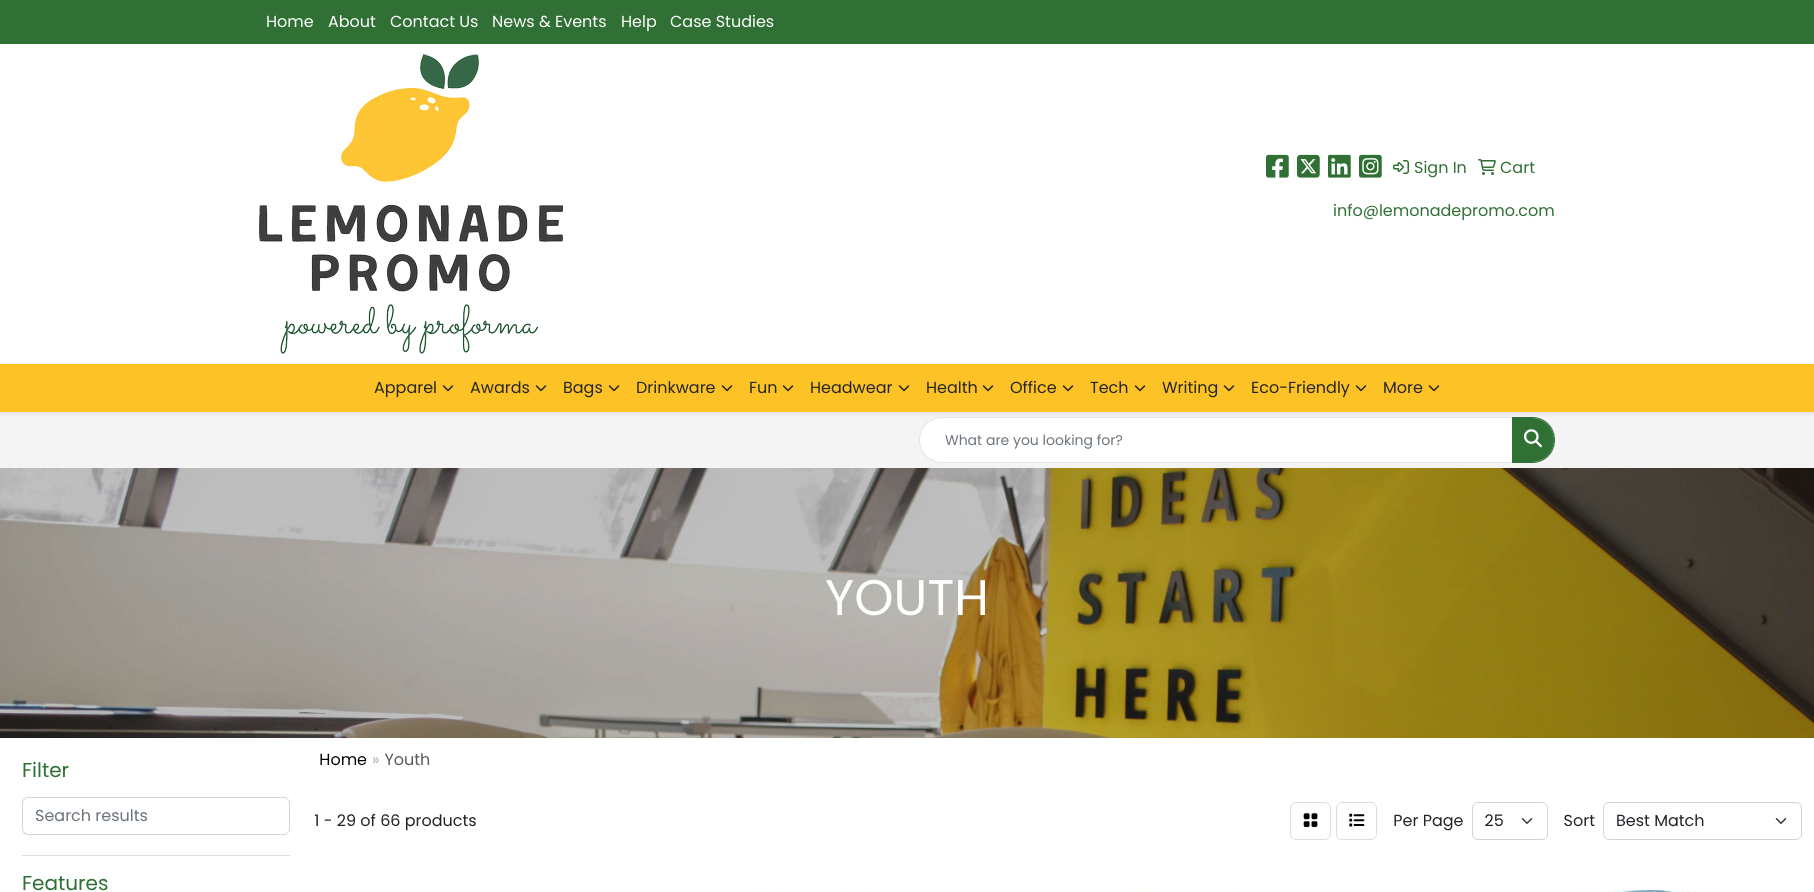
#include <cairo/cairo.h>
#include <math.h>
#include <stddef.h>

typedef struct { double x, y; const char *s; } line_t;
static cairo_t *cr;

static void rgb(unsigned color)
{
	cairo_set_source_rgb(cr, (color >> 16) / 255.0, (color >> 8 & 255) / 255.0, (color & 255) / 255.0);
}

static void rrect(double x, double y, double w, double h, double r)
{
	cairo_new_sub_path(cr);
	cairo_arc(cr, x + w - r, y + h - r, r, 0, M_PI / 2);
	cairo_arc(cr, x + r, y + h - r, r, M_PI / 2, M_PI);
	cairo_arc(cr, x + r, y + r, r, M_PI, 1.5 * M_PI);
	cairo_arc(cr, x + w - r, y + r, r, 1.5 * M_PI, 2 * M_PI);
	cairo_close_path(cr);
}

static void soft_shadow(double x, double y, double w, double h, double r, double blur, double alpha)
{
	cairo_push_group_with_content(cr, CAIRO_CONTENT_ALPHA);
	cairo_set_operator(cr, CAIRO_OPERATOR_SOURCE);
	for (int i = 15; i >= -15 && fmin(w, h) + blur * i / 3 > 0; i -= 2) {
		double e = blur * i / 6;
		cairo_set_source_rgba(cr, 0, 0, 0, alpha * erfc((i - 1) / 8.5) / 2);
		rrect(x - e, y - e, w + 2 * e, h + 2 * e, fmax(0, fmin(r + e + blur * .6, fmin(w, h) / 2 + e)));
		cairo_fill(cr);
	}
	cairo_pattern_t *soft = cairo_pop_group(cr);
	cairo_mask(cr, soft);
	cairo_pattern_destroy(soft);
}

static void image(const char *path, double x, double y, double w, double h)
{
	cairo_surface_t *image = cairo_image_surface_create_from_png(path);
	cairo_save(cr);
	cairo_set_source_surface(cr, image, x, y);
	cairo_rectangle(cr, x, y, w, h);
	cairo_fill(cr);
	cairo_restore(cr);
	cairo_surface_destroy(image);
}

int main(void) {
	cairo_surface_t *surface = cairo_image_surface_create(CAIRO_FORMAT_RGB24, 1814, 892);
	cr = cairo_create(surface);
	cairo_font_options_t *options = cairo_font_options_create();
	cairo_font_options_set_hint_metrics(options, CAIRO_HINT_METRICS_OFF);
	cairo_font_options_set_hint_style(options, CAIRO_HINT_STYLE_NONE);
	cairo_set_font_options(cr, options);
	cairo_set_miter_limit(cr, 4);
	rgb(0xffffff);
	cairo_paint(cr);
	rgb(0x307035);
	cairo_rectangle(cr, 0, 0, 1814, 44);
	cairo_fill(cr);
	image("img/1.png", 259, 54, 304, 300);
	image("img/2.png", 1266, 154, 23, 24);
	image("img/3.png", 1297, 154, 23, 24);
	image("img/4.png", 1328, 154, 23, 24);
	image("img/5.png", 1359, 154, 23, 24);
	image("img/6.png", 1393, 160, 16, 14);
	image("img/7.png", 1478, 159, 18, 16);
	rgb(0xf4f4f4);
	cairo_rectangle(cr, 0, 412, 1814, 56);
	cairo_fill(cr);
	rgb(0x000000);
	soft_shadow(0, 366, 1814, 48, 0, 2, 0.07);
	rgb(0xfcc226);
	cairo_rectangle(cr, 0, 364, 1814, 48);
	cairo_fill(cr);
	image("img/8.png", 442, 385, 12, 7);
	image("img/8.png", 535, 385, 12, 7);
	image("img/8.png", 608, 385, 12, 7);
	image("img/8.png", 721, 385, 12, 7);
	image("img/8.png", 782, 385, 12, 7);
	image("img/8.png", 898, 385, 12, 7);
	image("img/8.png", 982, 385, 12, 7);
	image("img/8.png", 1062, 385, 12, 7);
	image("img/8.png", 1134, 385, 12, 7);
	image("img/8.png", 1223, 385, 12, 7);
	image("img/8.png", 1355, 385, 12, 7);
	image("img/8.png", 1428, 385, 12, 7);
	rgb(0xffffff);
	cairo_new_path(cr);
	cairo_move_to(cr, 942, 417.5);
	cairo_line_to(cr, 1512.5, 417.5);
	cairo_line_to(cr, 1512.5, 462.5);
	cairo_line_to(cr, 942, 462.5);
	cairo_curve_to(cr, 929.5, 462.5, 919.5, 452.5, 919.5, 440);
	cairo_curve_to(cr, 919.5, 427.5, 929.5, 417.5, 942, 417.5);
	cairo_close_path(cr);
	cairo_fill_preserve(cr);
	rgb(0xe4e4e4);
	cairo_set_line_width(cr, 1);
	cairo_stroke(cr);
	rgb(0x307035);
	cairo_new_path(cr);
	cairo_move_to(cr, 1512, 418);
	cairo_line_to(cr, 1532, 418);
	cairo_curve_to(cr, 1544, 418, 1554, 428, 1554, 440);
	cairo_curve_to(cr, 1554, 452, 1544, 462, 1532, 462);
	cairo_line_to(cr, 1512, 462);
	cairo_close_path(cr);
	cairo_fill(cr);
	cairo_set_fill_rule(cr, CAIRO_FILL_RULE_EVEN_ODD);
	cairo_new_path(cr);
	cairo_move_to(cr, 1512, 417);
	cairo_line_to(cr, 1532, 417);
	cairo_curve_to(cr, 1545, 417, 1555, 427, 1555, 440);
	cairo_curve_to(cr, 1555, 453, 1545, 463, 1532, 463);
	cairo_line_to(cr, 1512, 463);
	cairo_close_path(cr);
	cairo_move_to(cr, 1512, 418);
	cairo_line_to(cr, 1532, 418);
	cairo_curve_to(cr, 1544, 418, 1554, 428, 1554, 440);
	cairo_curve_to(cr, 1554, 452, 1544, 462, 1532, 462);
	cairo_line_to(cr, 1512, 462);
	cairo_close_path(cr);
	cairo_fill(cr);
	image("img/9.png", 1524, 429, 18, 19);
	image("img/10.png", 0, 468, 1814, 270);
	image("img/11.png", 22, 753, 1780, 139);
	cairo_select_font_face(cr, "Poppins", CAIRO_FONT_SLANT_NORMAL, CAIRO_FONT_WEIGHT_NORMAL);
	cairo_set_font_size(cr, 16);
	rgb(0xffffff);
	{
		static const line_t items[] = {
			{266, 27, "Home"},
			{328, 27, "About"},
			{390, 27, "Contact Us"},
			{492, 27, "News & Events"},
			{621, 27, "Help"},
			{670, 27, "Case Studies"},
		};
		for (size_t i = 0; i < sizeof items / sizeof *items; i++) {
			cairo_move_to(cr, items[i].x, items[i].y);
			cairo_show_text(cr, items[i].s);
		}
	}
	rgb(0x307035);
	{
		static const line_t items[] = {
			{1414, 173, "Sign In"},
			{1500, 173, "Cart"},
			{1333, 216, "info@lemonadepromo.com"},
		};
		for (size_t i = 0; i < sizeof items / sizeof *items; i++) {
			cairo_move_to(cr, items[i].x, items[i].y);
			cairo_show_text(cr, items[i].s);
		}
	}
	rgb(0x252525);
	{
		static const line_t items[] = {
			{374, 393, "Apparel"},
			{470, 393, "Awards"},
			{563, 393, "Bags"},
			{636, 393, "Drinkware"},
			{749, 393, "Fun"},
			{810, 393, "Headwear"},
			{926, 393, "Health"},
			{1010, 393, "Office"},
			{1090, 393, "Tech"},
			{1162, 393, "Writing"},
			{1251, 393, "Eco-Friendly"},
			{1383, 393, "More"},
		};
		for (size_t i = 0; i < sizeof items / sizeof *items; i++) {
			cairo_move_to(cr, items[i].x, items[i].y);
			cairo_show_text(cr, items[i].s);
		}
	}
	cairo_set_font_size(cr, 14);
	rgb(0x6c757d);
	cairo_move_to(cr, 945, 445);
	cairo_show_text(cr, "What are you looking for?");
	cairo_set_font_size(cr, 50);
	rgb(0xffffff);
	cairo_move_to(cr, 825, 615);
	cairo_show_text(cr, "YOUTH");
	cairo_surface_write_to_png(surface, "page.png");
	cairo_font_options_destroy(options);
	cairo_destroy(cr);
	cairo_surface_destroy(surface);
	return 0;
}
